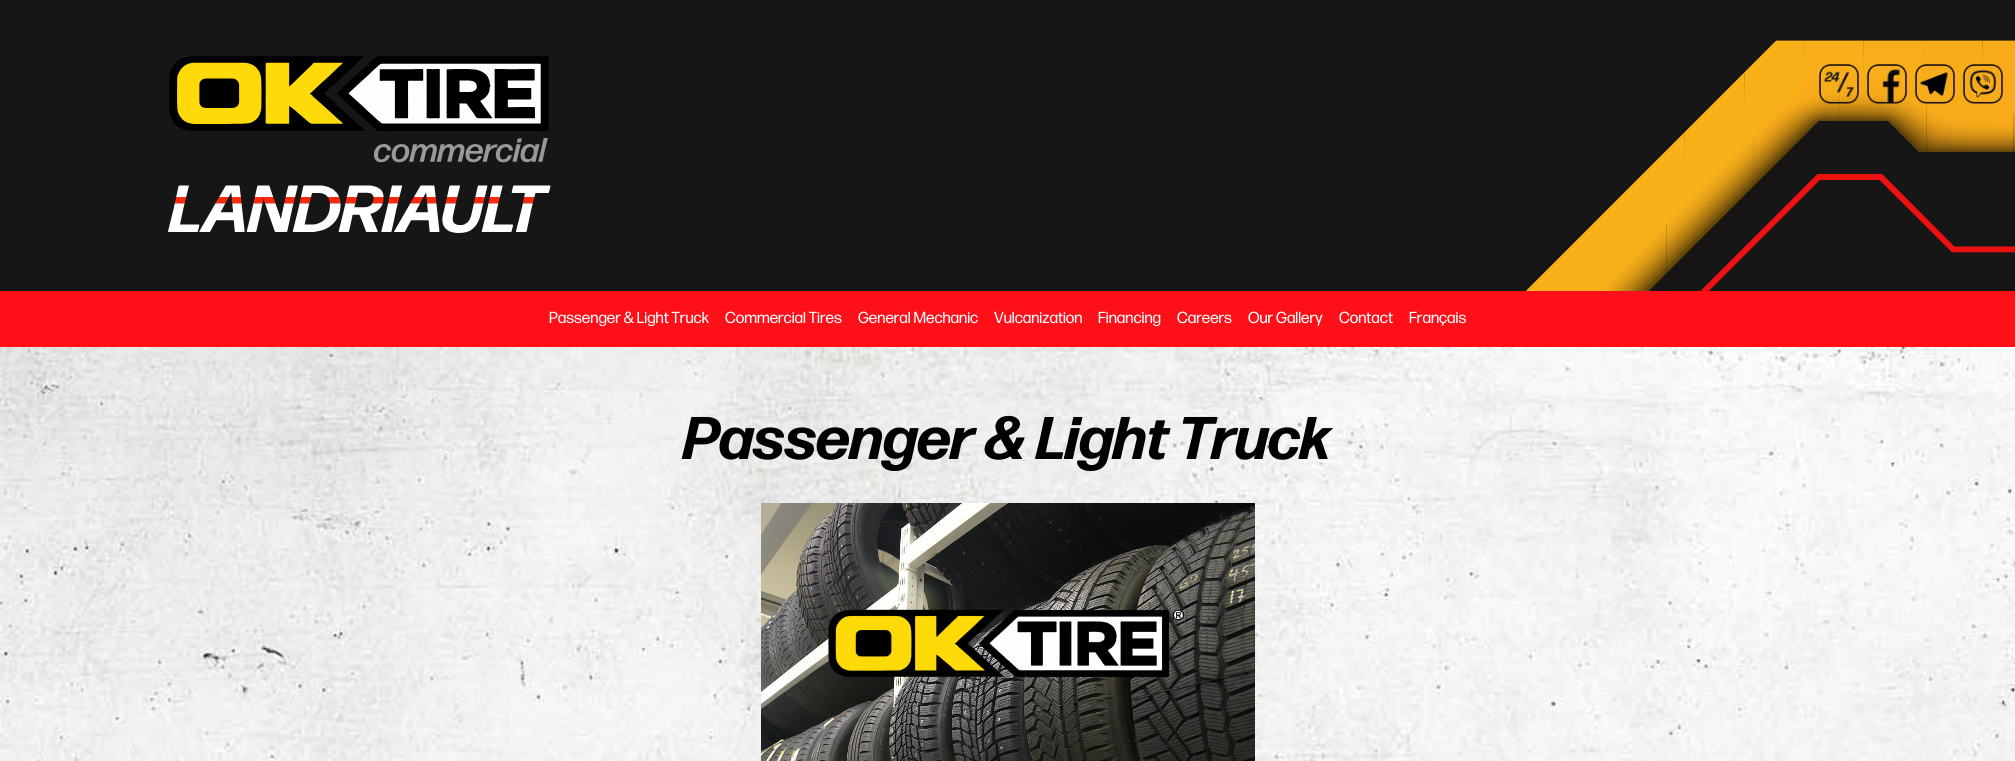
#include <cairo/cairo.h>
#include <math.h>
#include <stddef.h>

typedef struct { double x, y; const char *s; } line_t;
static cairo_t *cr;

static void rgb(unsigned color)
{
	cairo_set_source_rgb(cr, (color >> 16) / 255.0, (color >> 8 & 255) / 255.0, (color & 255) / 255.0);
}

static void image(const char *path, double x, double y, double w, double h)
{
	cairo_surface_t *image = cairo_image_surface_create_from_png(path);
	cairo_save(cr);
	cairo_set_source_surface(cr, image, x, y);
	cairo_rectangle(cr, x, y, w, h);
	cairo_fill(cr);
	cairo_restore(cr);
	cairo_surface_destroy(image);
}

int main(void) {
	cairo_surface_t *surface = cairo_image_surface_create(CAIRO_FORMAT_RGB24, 2015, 761);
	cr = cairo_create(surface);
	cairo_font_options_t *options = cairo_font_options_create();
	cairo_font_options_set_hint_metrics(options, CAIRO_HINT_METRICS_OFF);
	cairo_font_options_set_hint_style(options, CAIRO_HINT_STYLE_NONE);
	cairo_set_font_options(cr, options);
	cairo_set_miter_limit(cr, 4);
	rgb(0x161616);
	cairo_paint(cr);
	image("img/1.png", 1526, 40, 489, 251);
	image("img/2.png", 168, 56, 383, 177);
	image("img/3.png", 1819, 64, 40, 40);
	image("img/4.png", 1867, 64, 40, 40);
	image("img/5.png", 1915, 64, 40, 40);
	image("img/6.png", 1963, 64, 40, 40);
	rgb(0xff0f18);
	cairo_rectangle(cr, 0, 291, 2015, 56);
	cairo_fill(cr);
	image("img/7.png", 0, 347, 2015, 414);
	image("img/8.png", 761, 503, 494, 258);
	cairo_select_font_face(cr, "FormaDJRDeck", CAIRO_FONT_SLANT_NORMAL, CAIRO_FONT_WEIGHT_NORMAL);
	cairo_set_font_size(cr, 16);
	rgb(0xffffff);
	{
		static const line_t items[] = {
			{549, 323, "Passenger & Light Truck"},
			{725, 323, "Commercial Tires"},
			{858, 323, "General Mechanic"},
			{994, 323, "Vulcanization"},
			{1098, 323, "Financing"},
			{1177, 323, "Careers"},
			{1248, 323, "Our Gallery"},
			{1339, 323, "Contact"},
			{1409, 323, "Français"},
		};
		for (size_t i = 0; i < sizeof items / sizeof *items; i++) {
			cairo_move_to(cr, items[i].x, items[i].y);
			cairo_show_text(cr, items[i].s);
		}
	}
	cairo_select_font_face(cr, "FormaDJRDeck", CAIRO_FONT_SLANT_ITALIC, CAIRO_FONT_WEIGHT_BOLD);
	cairo_set_font_size(cr, 60);
	rgb(0x000000);
	cairo_move_to(cr, 684, 459);
	cairo_show_text(cr, "Passenger & Light Truck");
	cairo_surface_write_to_png(surface, "page.png");
	cairo_font_options_destroy(options);
	cairo_destroy(cr);
	cairo_surface_destroy(surface);
	return 0;
}
